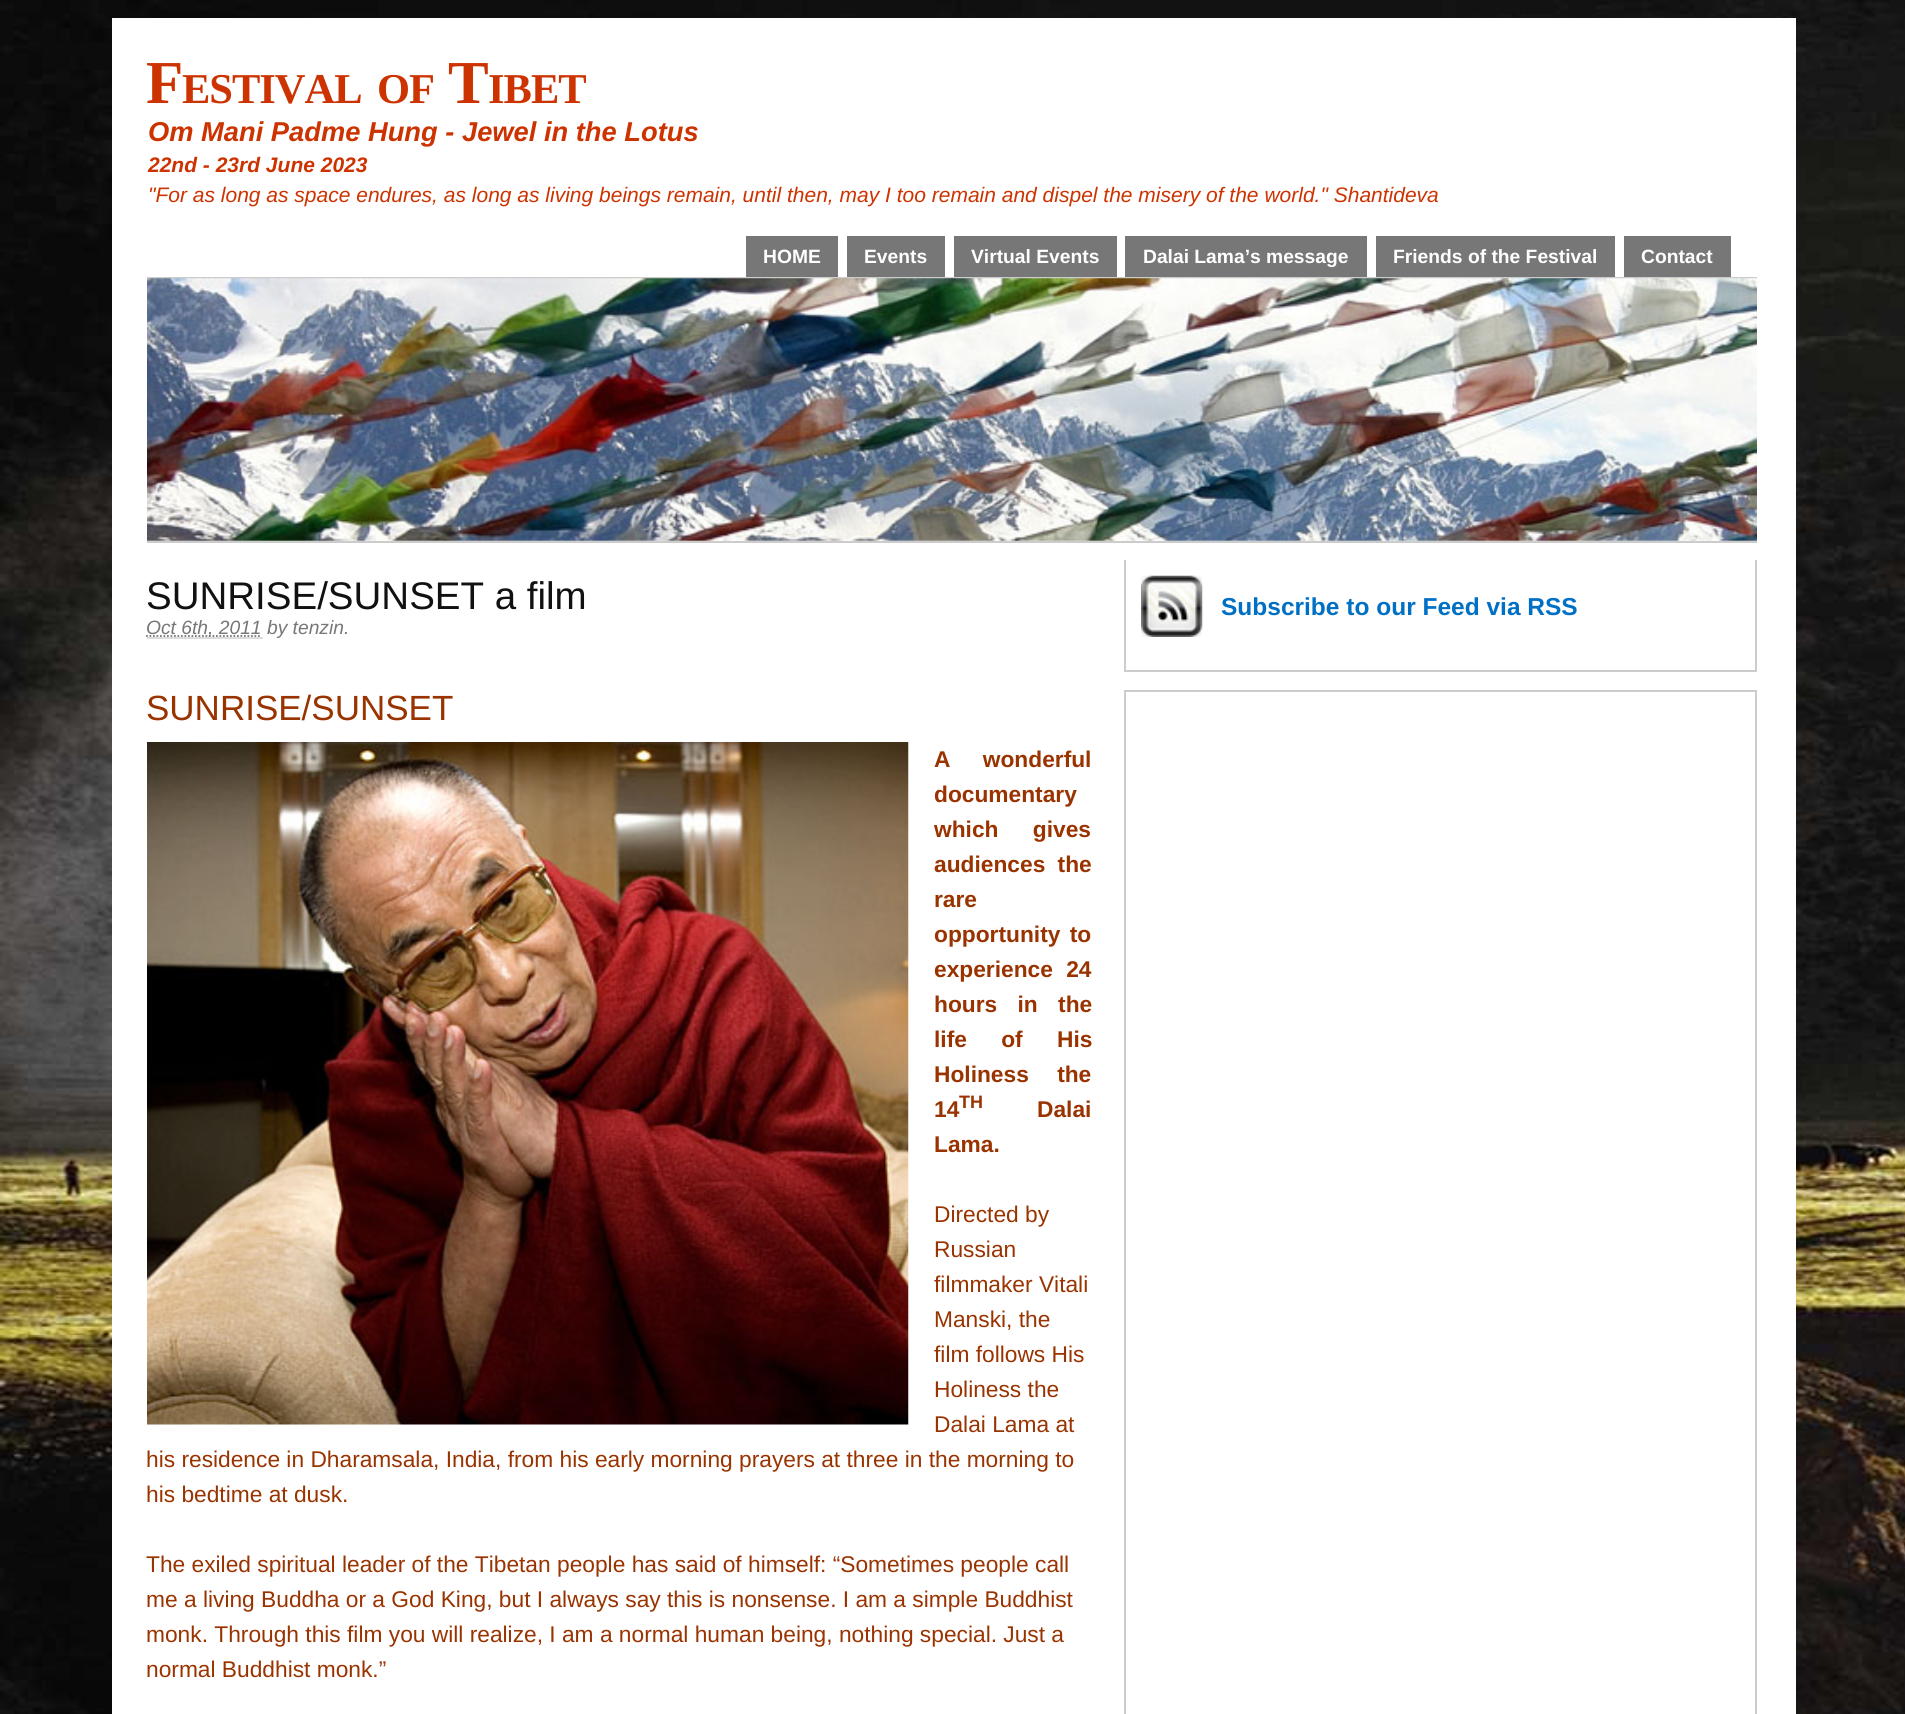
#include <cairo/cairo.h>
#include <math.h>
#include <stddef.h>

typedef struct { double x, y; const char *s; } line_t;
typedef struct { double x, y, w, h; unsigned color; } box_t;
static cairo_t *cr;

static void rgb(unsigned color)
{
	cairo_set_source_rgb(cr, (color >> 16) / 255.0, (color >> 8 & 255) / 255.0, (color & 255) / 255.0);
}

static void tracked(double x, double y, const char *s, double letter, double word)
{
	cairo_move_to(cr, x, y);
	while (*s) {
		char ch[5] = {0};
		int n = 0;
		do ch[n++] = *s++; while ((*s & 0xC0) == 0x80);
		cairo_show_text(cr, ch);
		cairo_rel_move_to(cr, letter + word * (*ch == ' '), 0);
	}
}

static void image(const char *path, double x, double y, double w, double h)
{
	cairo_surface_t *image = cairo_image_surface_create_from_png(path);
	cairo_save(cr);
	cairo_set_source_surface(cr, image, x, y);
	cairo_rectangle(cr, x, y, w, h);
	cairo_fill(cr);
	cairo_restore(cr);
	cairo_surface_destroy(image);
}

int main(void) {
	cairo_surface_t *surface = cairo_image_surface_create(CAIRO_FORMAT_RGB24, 1905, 1714);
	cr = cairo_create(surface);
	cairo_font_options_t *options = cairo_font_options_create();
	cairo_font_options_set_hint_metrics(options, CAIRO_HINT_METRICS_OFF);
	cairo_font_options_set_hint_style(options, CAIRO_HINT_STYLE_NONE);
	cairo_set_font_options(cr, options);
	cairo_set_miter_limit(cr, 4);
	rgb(0xffffff);
	cairo_paint(cr);
	image("img/1.png", 0, 0, 1905, 1714);
	{
		static const box_t items[] = {
			{112, 18, 1684, 1696, 0xffffff},
			{746, 236, 92, 41, 0x777777},
			{847, 236, 98, 41, 0x777777},
			{954, 236, 163, 41, 0x777777},
			{1125, 236, 242, 41, 0x777777},
			{1376, 236, 239, 41, 0x777777},
			{1624, 236, 107, 41, 0x777777},
			{147, 277, 1610, 2, 0xcccccc},
			{147, 541, 1610, 2, 0xcccccc},
		};
		for (size_t i = 0; i < sizeof items / sizeof *items; i++) {
			rgb(items[i].color);
			cairo_rectangle(cr, items[i].x, items[i].y, items[i].w, items[i].h);
			cairo_fill(cr);
		}
	}
	image("img/2.png", 147, 278, 1610, 263);
	rgb(0xdddddd);
	cairo_rectangle(cr, 147, 637, 116, 2);
	cairo_fill(cr);
	cairo_new_path(cr);
	cairo_move_to(cr, 146, 636);
	cairo_line_to(cr, 261.5, 636);
	rgb(0x777777);
	cairo_set_line_width(cr, 1.8);
	cairo_set_dash(cr, (double[]){1.75, 1.75}, 2, 0);
	cairo_stroke(cr);
	image("img/3.png", 147, 742, 762, 683);
	{
		static const box_t items[] = {
			{1755, 560, 2, 112, 0xcccccc},
			{1124, 670, 633, 2, 0xcccccc},
			{1124, 560, 2, 112, 0xcccccc},
		};
		for (size_t i = 0; i < sizeof items / sizeof *items; i++) {
			rgb(items[i].color);
			cairo_rectangle(cr, items[i].x, items[i].y, items[i].w, items[i].h);
			cairo_fill(cr);
		}
	}
	image("img/4.png", 1141, 575, 62, 62);
	{
		static const box_t items[] = {
			{1124, 690, 633, 2, 0xcccccc},
			{1755, 690, 2, 1024, 0xcccccc},
			{1124, 690, 2, 1024, 0xcccccc},
		};
		for (size_t i = 0; i < sizeof items / sizeof *items; i++) {
			rgb(items[i].color);
			cairo_rectangle(cr, items[i].x, items[i].y, items[i].w, items[i].h);
			cairo_fill(cr);
		}
	}
	cairo_select_font_face(cr, "Liberation Serif", CAIRO_FONT_SLANT_NORMAL, CAIRO_FONT_WEIGHT_BOLD);
	cairo_set_font_size(cr, 61);
	rgb(0xcc3300);
	tracked(146, 103, "F", -1, 0);
	cairo_set_font_size(cr, 42.5);
	tracked(182, 103, "ESTIVAL", -1, 0);
	tracked(377, 103, "OF", -1, 0);
	cairo_set_font_size(cr, 61);
	tracked(448, 103, "T", -1, 0);
	cairo_set_font_size(cr, 42.5);
	tracked(488, 103, "IBET", -1, 0);
	cairo_select_font_face(cr, "Liberation Sans", CAIRO_FONT_SLANT_ITALIC, CAIRO_FONT_WEIGHT_BOLD);
	cairo_set_font_size(cr, 27.3);
	cairo_move_to(cr, 148, 141);
	cairo_show_text(cr, "Om Mani Padme Hung - Jewel in the Lotus");
	cairo_set_font_size(cr, 21);
	cairo_move_to(cr, 148, 172);
	cairo_show_text(cr, "22nd - 23rd June 2023");
	cairo_select_font_face(cr, "Liberation Sans", CAIRO_FONT_SLANT_ITALIC, CAIRO_FONT_WEIGHT_NORMAL);
	cairo_move_to(cr, 148, 202);
	cairo_show_text(cr, "\"For as long as space endures, as long as living beings remain, until then, may I too remain and dispel the misery of the world.\" Shantideva");
	cairo_select_font_face(cr, "Liberation Sans", CAIRO_FONT_SLANT_NORMAL, CAIRO_FONT_WEIGHT_BOLD);
	cairo_set_font_size(cr, 19.25);
	rgb(0xffffff);
	{
		static const line_t items[] = {
			{763, 263, "HOME"},
			{864, 263, "Events"},
			{971, 263, "Virtual Events"},
			{1143, 263, "Dalai Lama’s message"},
			{1393, 263, "Friends of the Festival"},
			{1641, 263, "Contact"},
		};
		for (size_t i = 0; i < sizeof items / sizeof *items; i++) {
			cairo_move_to(cr, items[i].x, items[i].y);
			cairo_show_text(cr, items[i].s);
		}
	}
	cairo_select_font_face(cr, "Liberation Sans", CAIRO_FONT_SLANT_NORMAL, CAIRO_FONT_WEIGHT_NORMAL);
	cairo_set_font_size(cr, 38.5);
	rgb(0x111111);
	cairo_move_to(cr, 146, 609);
	cairo_show_text(cr, "SUNRISE/SUNSET a film");
	cairo_select_font_face(cr, "Liberation Sans", CAIRO_FONT_SLANT_ITALIC, CAIRO_FONT_WEIGHT_NORMAL);
	cairo_set_font_size(cr, 19.25);
	rgb(0x777777);
	cairo_move_to(cr, 146, 634);
	cairo_show_text(cr, "Oct 6th, 2011 by tenzin.");
	cairo_select_font_face(cr, "Liberation Sans", CAIRO_FONT_SLANT_NORMAL, CAIRO_FONT_WEIGHT_NORMAL);
	cairo_set_font_size(cr, 35);
	rgb(0x993300);
	cairo_move_to(cr, 146, 720);
	cairo_show_text(cr, "SUNRISE/SUNSET");
	cairo_select_font_face(cr, "Liberation Sans", CAIRO_FONT_SLANT_NORMAL, CAIRO_FONT_WEIGHT_BOLD);
	cairo_set_font_size(cr, 22.75);
	tracked(934, 767, "A wonderful", 0, 26);
	cairo_move_to(cr, 934, 802);
	cairo_show_text(cr, "documentary");
	tracked(934, 837, "which gives", 0, 28);
	tracked(934, 872, "audiences the", 0, 6);
	cairo_move_to(cr, 934, 907);
	cairo_show_text(cr, "rare");
	tracked(934, 942, "opportunity to", 0, 3);
	tracked(934, 977, "experience 24", 0, 7);
	tracked(934, 1012, "hours in the", 0, 14);
	tracked(934, 1047, "life of His", 0, 28);
	tracked(934, 1082, "Holiness the", 0, 22);
	cairo_move_to(cr, 934, 1117);
	cairo_show_text(cr, "14");
	cairo_set_font_size(cr, 18);
	cairo_move_to(cr, 959, 1108);
	cairo_show_text(cr, "TH");
	cairo_set_font_size(cr, 22.75);
	cairo_move_to(cr, 1037, 1117);
	cairo_show_text(cr, "Dalai");
	cairo_move_to(cr, 934, 1152);
	cairo_show_text(cr, "Lama.");
	cairo_select_font_face(cr, "Liberation Sans", CAIRO_FONT_SLANT_NORMAL, CAIRO_FONT_WEIGHT_NORMAL);
	{
		static const line_t items[] = {
			{934, 1222, "Directed by"},
			{934, 1257, "Russian"},
			{934, 1292, "filmmaker Vitali"},
			{934, 1327, "Manski, the"},
			{934, 1362, "film follows His"},
			{934, 1397, "Holiness the"},
			{934, 1432, "Dalai Lama at"},
			{146, 1467, "his residence in Dharamsala, India, from his early morning prayers at three in the morning to"},
			{146, 1502, "his bedtime at dusk."},
			{146, 1572, "The exiled spiritual leader of the Tibetan people has said of himself: “Sometimes people call"},
			{146, 1607, "me a living Buddha or a God King, but I always say this is nonsense. I am a simple Buddhist"},
			{146, 1642, "monk. Through this film you will realize, I am a normal human being, nothing special. Just a"},
			{146, 1677, "normal Buddhist monk.”"},
		};
		for (size_t i = 0; i < sizeof items / sizeof *items; i++) {
			cairo_move_to(cr, items[i].x, items[i].y);
			cairo_show_text(cr, items[i].s);
		}
	}
	cairo_select_font_face(cr, "Liberation Sans", CAIRO_FONT_SLANT_NORMAL, CAIRO_FONT_WEIGHT_BOLD);
	cairo_set_font_size(cr, 24.5);
	rgb(0x0070c5);
	cairo_move_to(cr, 1221, 615);
	cairo_show_text(cr, "Subscribe to our Feed via RSS");
	cairo_surface_write_to_png(surface, "page.png");
	cairo_font_options_destroy(options);
	cairo_destroy(cr);
	cairo_surface_destroy(surface);
	return 0;
}
